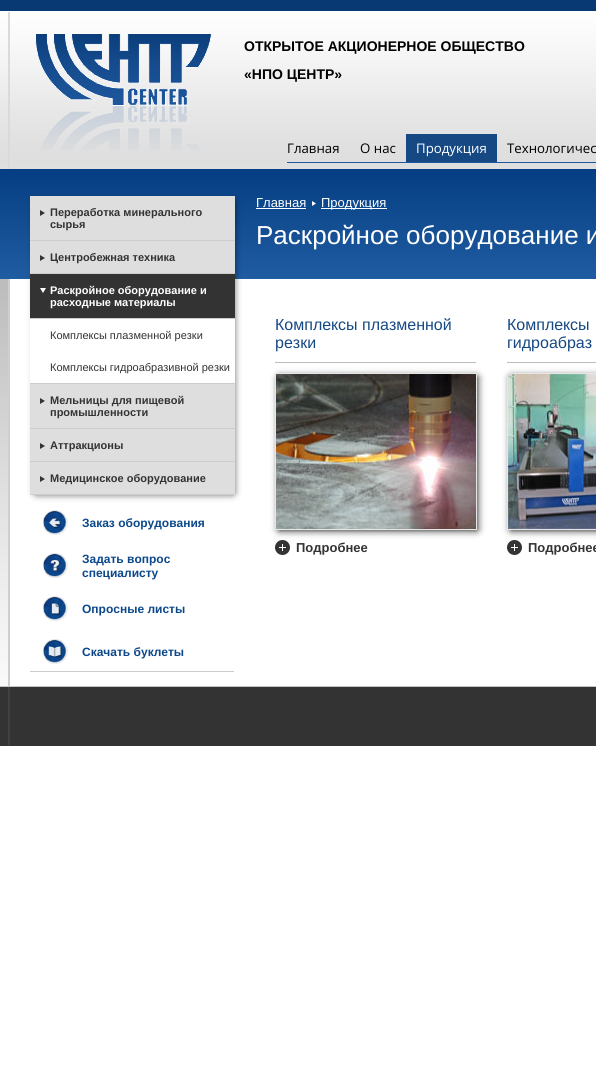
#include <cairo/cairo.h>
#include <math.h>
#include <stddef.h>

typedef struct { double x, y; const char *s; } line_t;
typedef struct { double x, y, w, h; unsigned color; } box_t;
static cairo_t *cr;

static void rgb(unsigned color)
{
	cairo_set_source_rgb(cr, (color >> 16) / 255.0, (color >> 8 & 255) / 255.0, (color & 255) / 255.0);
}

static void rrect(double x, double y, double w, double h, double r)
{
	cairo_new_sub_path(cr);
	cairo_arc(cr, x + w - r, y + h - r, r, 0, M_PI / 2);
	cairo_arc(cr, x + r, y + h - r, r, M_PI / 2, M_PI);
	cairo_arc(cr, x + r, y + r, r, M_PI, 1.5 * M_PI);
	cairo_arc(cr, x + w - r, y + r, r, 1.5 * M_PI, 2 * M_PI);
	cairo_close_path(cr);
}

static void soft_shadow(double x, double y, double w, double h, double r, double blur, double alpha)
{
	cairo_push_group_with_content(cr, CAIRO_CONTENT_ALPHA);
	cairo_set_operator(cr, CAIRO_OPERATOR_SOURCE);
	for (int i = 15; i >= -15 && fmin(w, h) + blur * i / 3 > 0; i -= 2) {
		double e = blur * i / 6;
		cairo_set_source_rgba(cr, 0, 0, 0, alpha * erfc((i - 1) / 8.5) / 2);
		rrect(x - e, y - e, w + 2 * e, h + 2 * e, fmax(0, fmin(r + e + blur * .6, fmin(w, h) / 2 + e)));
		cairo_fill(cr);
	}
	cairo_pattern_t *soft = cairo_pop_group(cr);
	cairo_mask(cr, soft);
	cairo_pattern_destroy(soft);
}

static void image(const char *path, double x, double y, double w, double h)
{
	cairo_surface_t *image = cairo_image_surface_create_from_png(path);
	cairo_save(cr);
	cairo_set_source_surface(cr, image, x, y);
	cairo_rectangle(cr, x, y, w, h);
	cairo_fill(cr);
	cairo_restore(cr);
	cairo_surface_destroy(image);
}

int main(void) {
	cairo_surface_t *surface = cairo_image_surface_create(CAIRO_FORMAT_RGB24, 596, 1071);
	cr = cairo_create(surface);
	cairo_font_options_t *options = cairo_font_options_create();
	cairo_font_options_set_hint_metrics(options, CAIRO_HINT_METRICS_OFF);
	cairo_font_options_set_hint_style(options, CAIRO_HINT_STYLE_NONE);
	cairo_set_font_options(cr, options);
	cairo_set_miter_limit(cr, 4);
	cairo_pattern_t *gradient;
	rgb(0xffffff);
	cairo_paint(cr);
	image("img/1.png", 0, 11, 596, 675);
	{
		static const box_t items[] = {
			{0, 0, 596, 11, 0x083972},
			{0, 163, 596, 6, 0xdfdfdf},
			{8, 12, 2, 157, 0xdadada},
		};
		for (size_t i = 0; i < sizeof items / sizeof *items; i++) {
			rgb(items[i].color);
			cairo_rectangle(cr, items[i].x, items[i].y, items[i].w, items[i].h);
			cairo_fill(cr);
		}
	}
	image("img/2.png", 35, 33, 177, 118);
	rgb(0x1d589e);
	cairo_rectangle(cr, 287, 162, 309, 1);
	cairo_fill(cr);
	rgb(0x164984);
	cairo_rectangle(cr, 406, 134, 91, 28);
	cairo_fill(cr);
	gradient = cairo_pattern_create_linear(500, 279, 500, 169);
	cairo_pattern_add_color_stop_rgba(gradient, 0, 0.125, 0.361, 0.635, 1);
	cairo_pattern_add_color_stop_rgba(gradient, 1, 0.02, 0.243, 0.51, 1);
	cairo_set_source(cr, gradient);
	cairo_pattern_destroy(gradient);
	cairo_rectangle(cr, 0, 169, 596, 110);
	cairo_fill(cr);
	rgb(0xffffff);
	cairo_rectangle(cr, 256, 208, 50, 1);
	cairo_fill(cr);
	image("img/3.png", 312, 201, 4, 5);
	{
		static const box_t items[] = {
			{321, 208, 66, 1, 0xffffff},
			{10, 279, 586, 407, 0xffffff},
			{8, 279, 2, 407, 0xcfcfcf},
		};
		for (size_t i = 0; i < sizeof items / sizeof *items; i++) {
			rgb(items[i].color);
			cairo_rectangle(cr, items[i].x, items[i].y, items[i].w, items[i].h);
			cairo_fill(cr);
		}
	}
	rgb(0x000000);
	soft_shadow(36, 202, 197, 291, 0, 4, 1);
	rgb(0xdedede);
	cairo_rectangle(cr, 30, 196, 205, 298);
	cairo_fill(cr);
	rgb(0xcdcdcd);
	cairo_rectangle(cr, 30, 240, 205, 1);
	cairo_fill(cr);
	image("img/4.png", 40, 210, 5, 6);
	cairo_rectangle(cr, 30, 273, 205, 1);
	cairo_fill(cr);
	image("img/4.png", 40, 255, 5, 6);
	rgb(0x333333);
	cairo_rectangle(cr, 30, 274, 205, 44);
	cairo_fill(cr);
	rgb(0xcdcdcd);
	cairo_rectangle(cr, 30, 383, 205, 1);
	cairo_fill(cr);
	image("img/5.png", 40, 288, 6, 5);
	{
		static const box_t items[] = {
			{30, 318, 205, 1, 0xcdcdcd},
			{30, 319, 205, 64, 0xffffff},
			{30, 428, 205, 1, 0xcdcdcd},
		};
		for (size_t i = 0; i < sizeof items / sizeof *items; i++) {
			rgb(items[i].color);
			cairo_rectangle(cr, items[i].x, items[i].y, items[i].w, items[i].h);
			cairo_fill(cr);
		}
	}
	image("img/4.png", 40, 398, 5, 6);
	cairo_rectangle(cr, 30, 461, 205, 1);
	cairo_fill(cr);
	image("img/4.png", 40, 443, 5, 6);
	cairo_rectangle(cr, 30, 494, 205, 1);
	cairo_fill(cr);
	image("img/4.png", 40, 476, 5, 6);
	image("img/6.png", 43, 510, 25, 25);
	image("img/7.png", 43, 553, 25, 25);
	image("img/8.png", 43, 596, 25, 25);
	cairo_rectangle(cr, 30, 671, 204, 1);
	cairo_fill(cr);
	image("img/9.png", 43, 639, 25, 25);
	rgb(0xbcbcbc);
	cairo_rectangle(cr, 275, 362, 201, 1);
	cairo_fill(cr);
	image("img/11.png", 275, 540, 15, 15);
	rgb(0x000000);
	soft_shadow(279, 377, 198, 153, 0, 4, 1);
	cairo_rectangle(cr, 275.5, 373.5, 201, 156);
	rgb(0xe6e6e6);
	cairo_set_line_width(cr, 1);
	cairo_stroke(cr);
	image("img/10.png", 276, 374, 200, 155);
	rgb(0xbcbcbc);
	cairo_rectangle(cr, 507, 362, 89, 1);
	cairo_fill(cr);
	image("img/11.png", 507, 540, 15, 15);
	rgb(0x000000);
	soft_shadow(511, 377, 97, 153, 0, 4, 1);
	cairo_rectangle(cr, 507.5, 373.5, 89, 156);
	rgb(0xe6e6e6);
	cairo_stroke(cr);
	image("img/12.png", 508, 374, 88, 155);
	{
		static const box_t items[] = {
			{0, 687, 596, 59, 0x333333},
			{0, 686, 596, 1, 0xc4c4c4},
			{8, 687, 2, 58, 0x414141},
		};
		for (size_t i = 0; i < sizeof items / sizeof *items; i++) {
			rgb(items[i].color);
			cairo_rectangle(cr, items[i].x, items[i].y, items[i].w, items[i].h);
			cairo_fill(cr);
		}
	}
	cairo_select_font_face(cr, "Liberation Sans", CAIRO_FONT_SLANT_NORMAL, CAIRO_FONT_WEIGHT_BOLD);
	cairo_set_font_size(cr, 14);
	rgb(0x000000);
	cairo_move_to(cr, 244, 51);
	cairo_show_text(cr, "ОТКРЫТОЕ АКЦИОНЕРНОЕ ОБЩЕСТВО");
	cairo_move_to(cr, 244, 79);
	cairo_show_text(cr, "«НПО ЦЕНТР»");
	cairo_select_font_face(cr, "Open Sans", CAIRO_FONT_SLANT_NORMAL, CAIRO_FONT_WEIGHT_NORMAL);
	cairo_set_font_size(cr, 13.25);
	cairo_move_to(cr, 287, 153);
	cairo_show_text(cr, "Главная");
	cairo_move_to(cr, 360, 153);
	cairo_show_text(cr, "О нас");
	rgb(0xffffff);
	cairo_move_to(cr, 416, 153);
	cairo_show_text(cr, "Продукция");
	rgb(0x000000);
	cairo_move_to(cr, 507, 153);
	cairo_show_text(cr, "Технологичес");
	cairo_select_font_face(cr, "Liberation Sans", CAIRO_FONT_SLANT_NORMAL, CAIRO_FONT_WEIGHT_NORMAL);
	cairo_set_font_size(cr, 13);
	rgb(0xffffff);
	cairo_move_to(cr, 256, 207);
	cairo_show_text(cr, "Главная");
	cairo_move_to(cr, 321, 207);
	cairo_show_text(cr, "Продукция");
	cairo_set_font_size(cr, 26);
	cairo_move_to(cr, 256, 244);
	cairo_show_text(cr, "Раскройное оборудование и");
	cairo_select_font_face(cr, "Liberation Sans", CAIRO_FONT_SLANT_NORMAL, CAIRO_FONT_WEIGHT_BOLD);
	cairo_set_font_size(cr, 11);
	rgb(0x333333);
	{
		static const line_t items[] = {
			{50, 216, "Переработка минерального"},
			{50, 228, "сырья"},
			{50, 261, "Центробежная техника"},
		};
		for (size_t i = 0; i < sizeof items / sizeof *items; i++) {
			cairo_move_to(cr, items[i].x, items[i].y);
			cairo_show_text(cr, items[i].s);
		}
	}
	rgb(0xffffff);
	cairo_move_to(cr, 50, 294);
	cairo_show_text(cr, "Раскройное оборудование и");
	cairo_move_to(cr, 50, 306);
	cairo_show_text(cr, "расходные материалы");
	cairo_select_font_face(cr, "Liberation Sans", CAIRO_FONT_SLANT_NORMAL, CAIRO_FONT_WEIGHT_NORMAL);
	rgb(0x333333);
	cairo_move_to(cr, 50, 339);
	cairo_show_text(cr, "Комплексы плазменной резки");
	cairo_move_to(cr, 50, 371);
	cairo_show_text(cr, "Комплексы гидроабразивной резки");
	cairo_select_font_face(cr, "Liberation Sans", CAIRO_FONT_SLANT_NORMAL, CAIRO_FONT_WEIGHT_BOLD);
	{
		static const line_t items[] = {
			{50, 404, "Мельницы для пищевой"},
			{50, 416, "промышленности"},
			{50, 449, "Аттракционы"},
			{50, 482, "Медицинское оборудование"},
		};
		for (size_t i = 0; i < sizeof items / sizeof *items; i++) {
			cairo_move_to(cr, items[i].x, items[i].y);
			cairo_show_text(cr, items[i].s);
		}
	}
	cairo_set_font_size(cr, 12);
	rgb(0x0b488b);
	{
		static const line_t items[] = {
			{82, 527, "Заказ оборудования"},
			{82, 563, "Задать вопрос"},
			{82, 577, "специалисту"},
			{82, 613, "Опросные листы"},
			{82, 656, "Скачать буклеты"},
		};
		for (size_t i = 0; i < sizeof items / sizeof *items; i++) {
			cairo_move_to(cr, items[i].x, items[i].y);
			cairo_show_text(cr, items[i].s);
		}
	}
	cairo_select_font_face(cr, "Liberation Sans", CAIRO_FONT_SLANT_NORMAL, CAIRO_FONT_WEIGHT_NORMAL);
	cairo_set_font_size(cr, 16);
	rgb(0x164984);
	cairo_move_to(cr, 275, 330);
	cairo_show_text(cr, "Комплексы плазменной");
	cairo_move_to(cr, 275, 348);
	cairo_show_text(cr, "резки");
	cairo_select_font_face(cr, "Liberation Sans", CAIRO_FONT_SLANT_NORMAL, CAIRO_FONT_WEIGHT_BOLD);
	cairo_set_font_size(cr, 13);
	rgb(0x333333);
	cairo_move_to(cr, 296, 552);
	cairo_show_text(cr, "Подробнее");
	cairo_select_font_face(cr, "Liberation Sans", CAIRO_FONT_SLANT_NORMAL, CAIRO_FONT_WEIGHT_NORMAL);
	cairo_set_font_size(cr, 16);
	rgb(0x164984);
	cairo_move_to(cr, 507, 330);
	cairo_show_text(cr, "Комплексы");
	cairo_move_to(cr, 507, 348);
	cairo_show_text(cr, "гидроабраз");
	cairo_select_font_face(cr, "Liberation Sans", CAIRO_FONT_SLANT_NORMAL, CAIRO_FONT_WEIGHT_BOLD);
	cairo_set_font_size(cr, 13);
	rgb(0x333333);
	cairo_move_to(cr, 528, 552);
	cairo_show_text(cr, "Подробнее");
	cairo_surface_write_to_png(surface, "page.png");
	cairo_font_options_destroy(options);
	cairo_destroy(cr);
	cairo_surface_destroy(surface);
	return 0;
}
